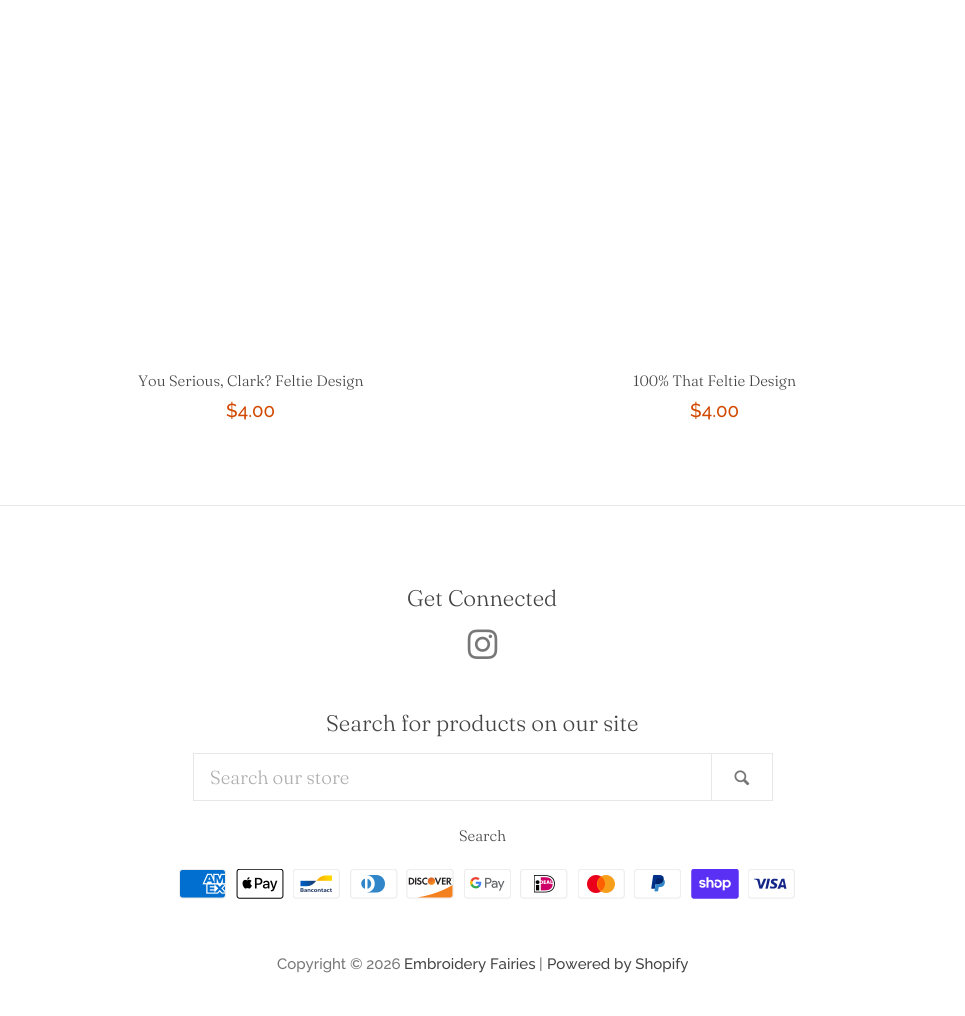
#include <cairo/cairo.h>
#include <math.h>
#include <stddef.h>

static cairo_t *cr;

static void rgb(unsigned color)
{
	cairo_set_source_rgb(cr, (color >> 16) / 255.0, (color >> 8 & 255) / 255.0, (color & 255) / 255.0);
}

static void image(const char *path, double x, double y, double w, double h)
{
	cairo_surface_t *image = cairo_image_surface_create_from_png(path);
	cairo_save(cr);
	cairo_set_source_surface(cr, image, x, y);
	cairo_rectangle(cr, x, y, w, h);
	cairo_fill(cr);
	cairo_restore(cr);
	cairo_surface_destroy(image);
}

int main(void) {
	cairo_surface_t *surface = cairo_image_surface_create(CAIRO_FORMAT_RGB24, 965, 1016);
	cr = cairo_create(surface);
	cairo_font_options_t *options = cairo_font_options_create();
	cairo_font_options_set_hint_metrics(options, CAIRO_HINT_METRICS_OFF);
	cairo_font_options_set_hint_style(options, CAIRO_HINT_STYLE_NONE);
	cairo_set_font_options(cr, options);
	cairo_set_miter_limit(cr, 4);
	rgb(0xffffff);
	cairo_paint(cr);
	rgb(0xe7e7e7);
	cairo_rectangle(cr, 0, 505, 965, 1);
	cairo_fill(cr);
	image("img/1.png", 467, 629, 31, 30);
	cairo_rectangle(cr, 193.5, 753.5, 579, 47);
	cairo_set_line_width(cr, 1);
	cairo_stroke(cr);
	cairo_rectangle(cr, 711, 754, 1, 46);
	cairo_fill(cr);
	image("img/2.png", 734, 770, 16, 16);
	image("img/3.png", 179, 869, 47, 30);
	image("img/4.png", 236, 869, 48, 30);
	image("img/5.png", 293, 869, 47, 30);
	image("img/6.png", 350, 869, 48, 30);
	image("img/7.png", 406, 869, 48, 30);
	image("img/8.png", 464, 869, 47, 30);
	image("img/9.png", 520, 869, 48, 30);
	image("img/10.png", 578, 869, 47, 30);
	image("img/11.png", 634, 869, 47, 30);
	image("img/12.png", 691, 869, 48, 30);
	image("img/13.png", 748, 869, 47, 30);
	cairo_select_font_face(cr, "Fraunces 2 Light", CAIRO_FONT_SLANT_NORMAL, CAIRO_FONT_WEIGHT_NORMAL);
	cairo_set_font_size(cr, 15);
	rgb(0x444444);
	cairo_move_to(cr, 138, 386);
	cairo_show_text(cr, "You Serious, Clark? Feltie Design");
	cairo_select_font_face(cr, "Raleway Medium", CAIRO_FONT_SLANT_NORMAL, CAIRO_FONT_WEIGHT_NORMAL);
	cairo_set_font_size(cr, 18.75);
	rgb(0xd14800);
	cairo_move_to(cr, 226, 417);
	cairo_show_text(cr, "$4.00");
	cairo_select_font_face(cr, "Fraunces 2 Light", CAIRO_FONT_SLANT_NORMAL, CAIRO_FONT_WEIGHT_NORMAL);
	cairo_set_font_size(cr, 15);
	rgb(0x444444);
	cairo_move_to(cr, 633, 386);
	cairo_show_text(cr, "100% That Feltie Design");
	cairo_select_font_face(cr, "Raleway Medium", CAIRO_FONT_SLANT_NORMAL, CAIRO_FONT_WEIGHT_NORMAL);
	cairo_set_font_size(cr, 18.75);
	rgb(0xd14800);
	cairo_move_to(cr, 690, 417);
	cairo_show_text(cr, "$4.00");
	cairo_select_font_face(cr, "Fraunces Light", CAIRO_FONT_SLANT_NORMAL, CAIRO_FONT_WEIGHT_NORMAL);
	cairo_set_font_size(cr, 22.5);
	rgb(0x444444);
	cairo_move_to(cr, 407, 606);
	cairo_show_text(cr, "Get Connected");
	cairo_move_to(cr, 326, 731);
	cairo_show_text(cr, "Search for products on our site");
	cairo_select_font_face(cr, "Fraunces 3 Light", CAIRO_FONT_SLANT_NORMAL, CAIRO_FONT_WEIGHT_NORMAL);
	cairo_set_font_size(cr, 18.75);
	rgb(0xadadad);
	cairo_move_to(cr, 210, 784);
	cairo_show_text(cr, "Search our store");
	cairo_select_font_face(cr, "Fraunces 2 Light", CAIRO_FONT_SLANT_NORMAL, CAIRO_FONT_WEIGHT_NORMAL);
	cairo_set_font_size(cr, 15);
	rgb(0x444444);
	cairo_move_to(cr, 459, 841);
	cairo_show_text(cr, "Search");
	cairo_select_font_face(cr, "Raleway Medium", CAIRO_FONT_SLANT_NORMAL, CAIRO_FONT_WEIGHT_NORMAL);
	rgb(0x777777);
	cairo_move_to(cr, 277, 969);
	cairo_show_text(cr, "Copyright © 2026");
	rgb(0x444444);
	cairo_move_to(cr, 404, 969);
	cairo_show_text(cr, "Embroidery Fairies");
	rgb(0x777777);
	cairo_move_to(cr, 539, 969);
	cairo_show_text(cr, "|");
	rgb(0x444444);
	cairo_move_to(cr, 547, 969);
	cairo_show_text(cr, "Powered by Shopify");
	cairo_surface_write_to_png(surface, "page.png");
	cairo_font_options_destroy(options);
	cairo_destroy(cr);
	cairo_surface_destroy(surface);
	return 0;
}
